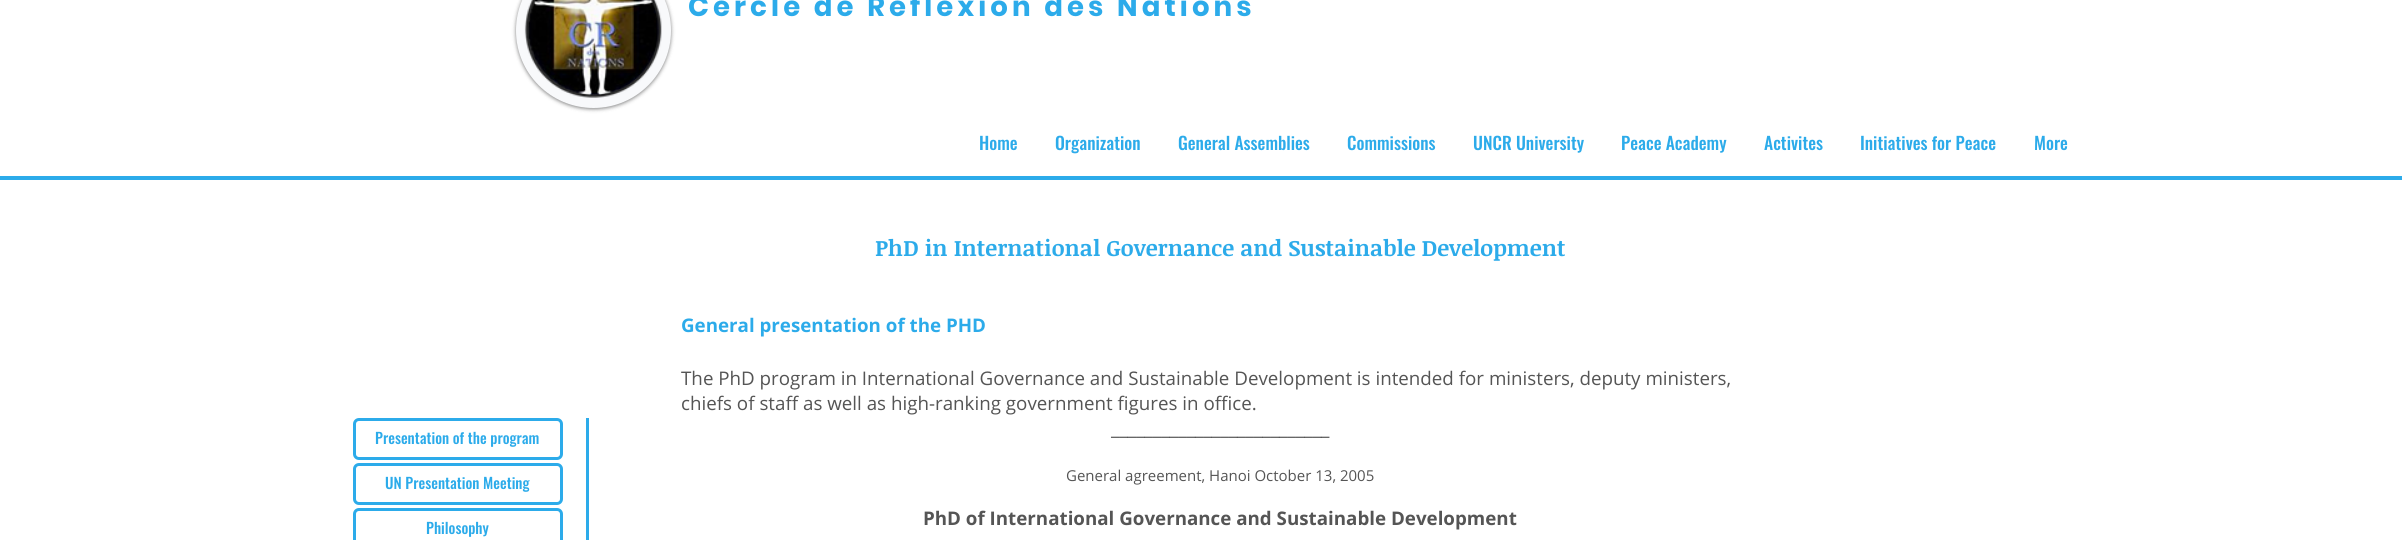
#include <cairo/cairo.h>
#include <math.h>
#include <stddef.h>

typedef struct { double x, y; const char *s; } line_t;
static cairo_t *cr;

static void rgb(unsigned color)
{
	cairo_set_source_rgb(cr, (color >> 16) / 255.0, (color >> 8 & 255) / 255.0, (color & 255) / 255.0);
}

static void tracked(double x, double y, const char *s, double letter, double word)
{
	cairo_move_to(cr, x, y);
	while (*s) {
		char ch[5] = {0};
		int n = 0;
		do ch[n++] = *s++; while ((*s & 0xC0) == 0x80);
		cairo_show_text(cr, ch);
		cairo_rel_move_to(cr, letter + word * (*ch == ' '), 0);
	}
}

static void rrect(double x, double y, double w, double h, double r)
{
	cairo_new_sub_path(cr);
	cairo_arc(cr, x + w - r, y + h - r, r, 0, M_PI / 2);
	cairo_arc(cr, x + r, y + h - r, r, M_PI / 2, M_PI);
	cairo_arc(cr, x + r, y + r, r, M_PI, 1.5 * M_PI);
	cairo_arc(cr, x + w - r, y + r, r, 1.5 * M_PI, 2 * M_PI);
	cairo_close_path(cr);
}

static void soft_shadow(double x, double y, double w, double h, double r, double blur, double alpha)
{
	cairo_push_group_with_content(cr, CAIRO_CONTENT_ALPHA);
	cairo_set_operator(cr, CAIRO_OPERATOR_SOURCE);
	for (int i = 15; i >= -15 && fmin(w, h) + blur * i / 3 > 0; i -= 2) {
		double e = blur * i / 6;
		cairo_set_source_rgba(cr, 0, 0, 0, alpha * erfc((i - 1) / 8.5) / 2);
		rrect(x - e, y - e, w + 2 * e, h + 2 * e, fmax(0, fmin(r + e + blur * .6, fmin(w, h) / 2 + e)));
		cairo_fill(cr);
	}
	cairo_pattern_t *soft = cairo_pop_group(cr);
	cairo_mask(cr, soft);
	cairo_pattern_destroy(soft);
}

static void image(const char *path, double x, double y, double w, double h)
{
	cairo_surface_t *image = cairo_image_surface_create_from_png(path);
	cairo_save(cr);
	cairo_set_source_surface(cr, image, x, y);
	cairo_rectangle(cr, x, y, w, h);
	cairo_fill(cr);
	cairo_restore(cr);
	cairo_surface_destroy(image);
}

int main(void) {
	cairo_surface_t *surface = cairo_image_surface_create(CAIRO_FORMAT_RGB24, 2402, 540);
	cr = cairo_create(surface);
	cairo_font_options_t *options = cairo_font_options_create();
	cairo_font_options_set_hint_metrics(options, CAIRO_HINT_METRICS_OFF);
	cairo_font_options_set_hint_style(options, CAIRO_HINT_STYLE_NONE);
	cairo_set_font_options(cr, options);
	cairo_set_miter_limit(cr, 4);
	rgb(0xffffff);
	cairo_paint(cr);
	rgb(0x000000);
	soft_shadow(516, -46, 155, 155, 77.5, 2, 0.5);
	rgb(0xf8f9fb);
	cairo_arc(cr, 593.5, 30.5, 77.5, 0, 2 * M_PI);
	cairo_fill(cr);
	image("img/1.png", 524, 0, 138, 98);
	rgb(0x2cabea);
	cairo_rectangle(cr, 0, 176, 2402, 4);
	cairo_fill(cr);
	rrect(354.5, 419.5, 207, 39, 4.5);
	cairo_set_line_width(cr, 3);
	cairo_stroke(cr);
	cairo_rectangle(cr, 586, 418, 3, 122);
	cairo_fill(cr);
	rrect(354.5, 464.5, 207, 39, 4.5);
	cairo_stroke(cr);
	rrect(354.5, 509.5, 207, 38, 4.5);
	cairo_stroke(cr);
	cairo_select_font_face(cr, "Poppins", CAIRO_FONT_SLANT_NORMAL, CAIRO_FONT_WEIGHT_BOLD);
	cairo_set_font_size(cr, 27.5);
	tracked(688, 16, "Cercle de Réflexion des Nations", 4.1, 0);
	cairo_select_font_face(cr, "Oswald Medium", CAIRO_FONT_SLANT_NORMAL, CAIRO_FONT_WEIGHT_NORMAL);
	cairo_set_font_size(cr, 17.5);
	{
		static const line_t items[] = {
			{979, 150, "Home"},
			{1055, 150, "Organization"},
			{1178, 150, "General Assemblies"},
			{1347, 150, "Commissions"},
			{1473, 150, "UNCR University"},
			{1621, 150, "Peace Academy"},
			{1764, 150, "Activites"},
			{1860, 150, "Initiatives for Peace"},
			{2034, 150, "More"},
		};
		for (size_t i = 0; i < sizeof items / sizeof *items; i++) {
			cairo_move_to(cr, items[i].x, items[i].y);
			cairo_show_text(cr, items[i].s);
		}
	}
	cairo_set_font_size(cr, 15);
	{
		static const line_t items[] = {
			{375, 444, "Presentation of the program"},
			{385, 489, "UN Presentation Meeting"},
			{426, 534, "Philosophy"},
		};
		for (size_t i = 0; i < sizeof items / sizeof *items; i++) {
			cairo_move_to(cr, items[i].x, items[i].y);
			cairo_show_text(cr, items[i].s);
		}
	}
	cairo_select_font_face(cr, "Noticia Text", CAIRO_FONT_SLANT_NORMAL, CAIRO_FONT_WEIGHT_BOLD);
	cairo_set_font_size(cr, 22.5);
	cairo_move_to(cr, 875, 256);
	cairo_show_text(cr, "PhD in International Governance and Sustainable Development");
	cairo_select_font_face(cr, "Open Sans", CAIRO_FONT_SLANT_NORMAL, CAIRO_FONT_WEIGHT_BOLD);
	cairo_set_font_size(cr, 18.75);
	cairo_move_to(cr, 681, 332);
	cairo_show_text(cr, "General presentation of the PHD");
	cairo_select_font_face(cr, "Open Sans", CAIRO_FONT_SLANT_NORMAL, CAIRO_FONT_WEIGHT_NORMAL);
	rgb(0x555555);
	{
		static const line_t items[] = {
			{681, 385, "The PhD program in International Governance and Sustainable Development is intended for ministers, deputy ministers,"},
			{681, 410, "chiefs of staff as well as high-ranking government figures in office."},
			{1111, 435, "__________________________"},
		};
		for (size_t i = 0; i < sizeof items / sizeof *items; i++) {
			cairo_move_to(cr, items[i].x, items[i].y);
			cairo_show_text(cr, items[i].s);
		}
	}
	cairo_set_font_size(cr, 15);
	cairo_move_to(cr, 1066, 481);
	cairo_show_text(cr, "General agreement, Hanoi October 13, 2005");
	cairo_select_font_face(cr, "Open Sans", CAIRO_FONT_SLANT_NORMAL, CAIRO_FONT_WEIGHT_BOLD);
	cairo_set_font_size(cr, 18.75);
	cairo_move_to(cr, 923, 525);
	cairo_show_text(cr, "PhD of International Governance and Sustainable Development");
	cairo_surface_write_to_png(surface, "page.png");
	cairo_font_options_destroy(options);
	cairo_destroy(cr);
	cairo_surface_destroy(surface);
	return 0;
}
